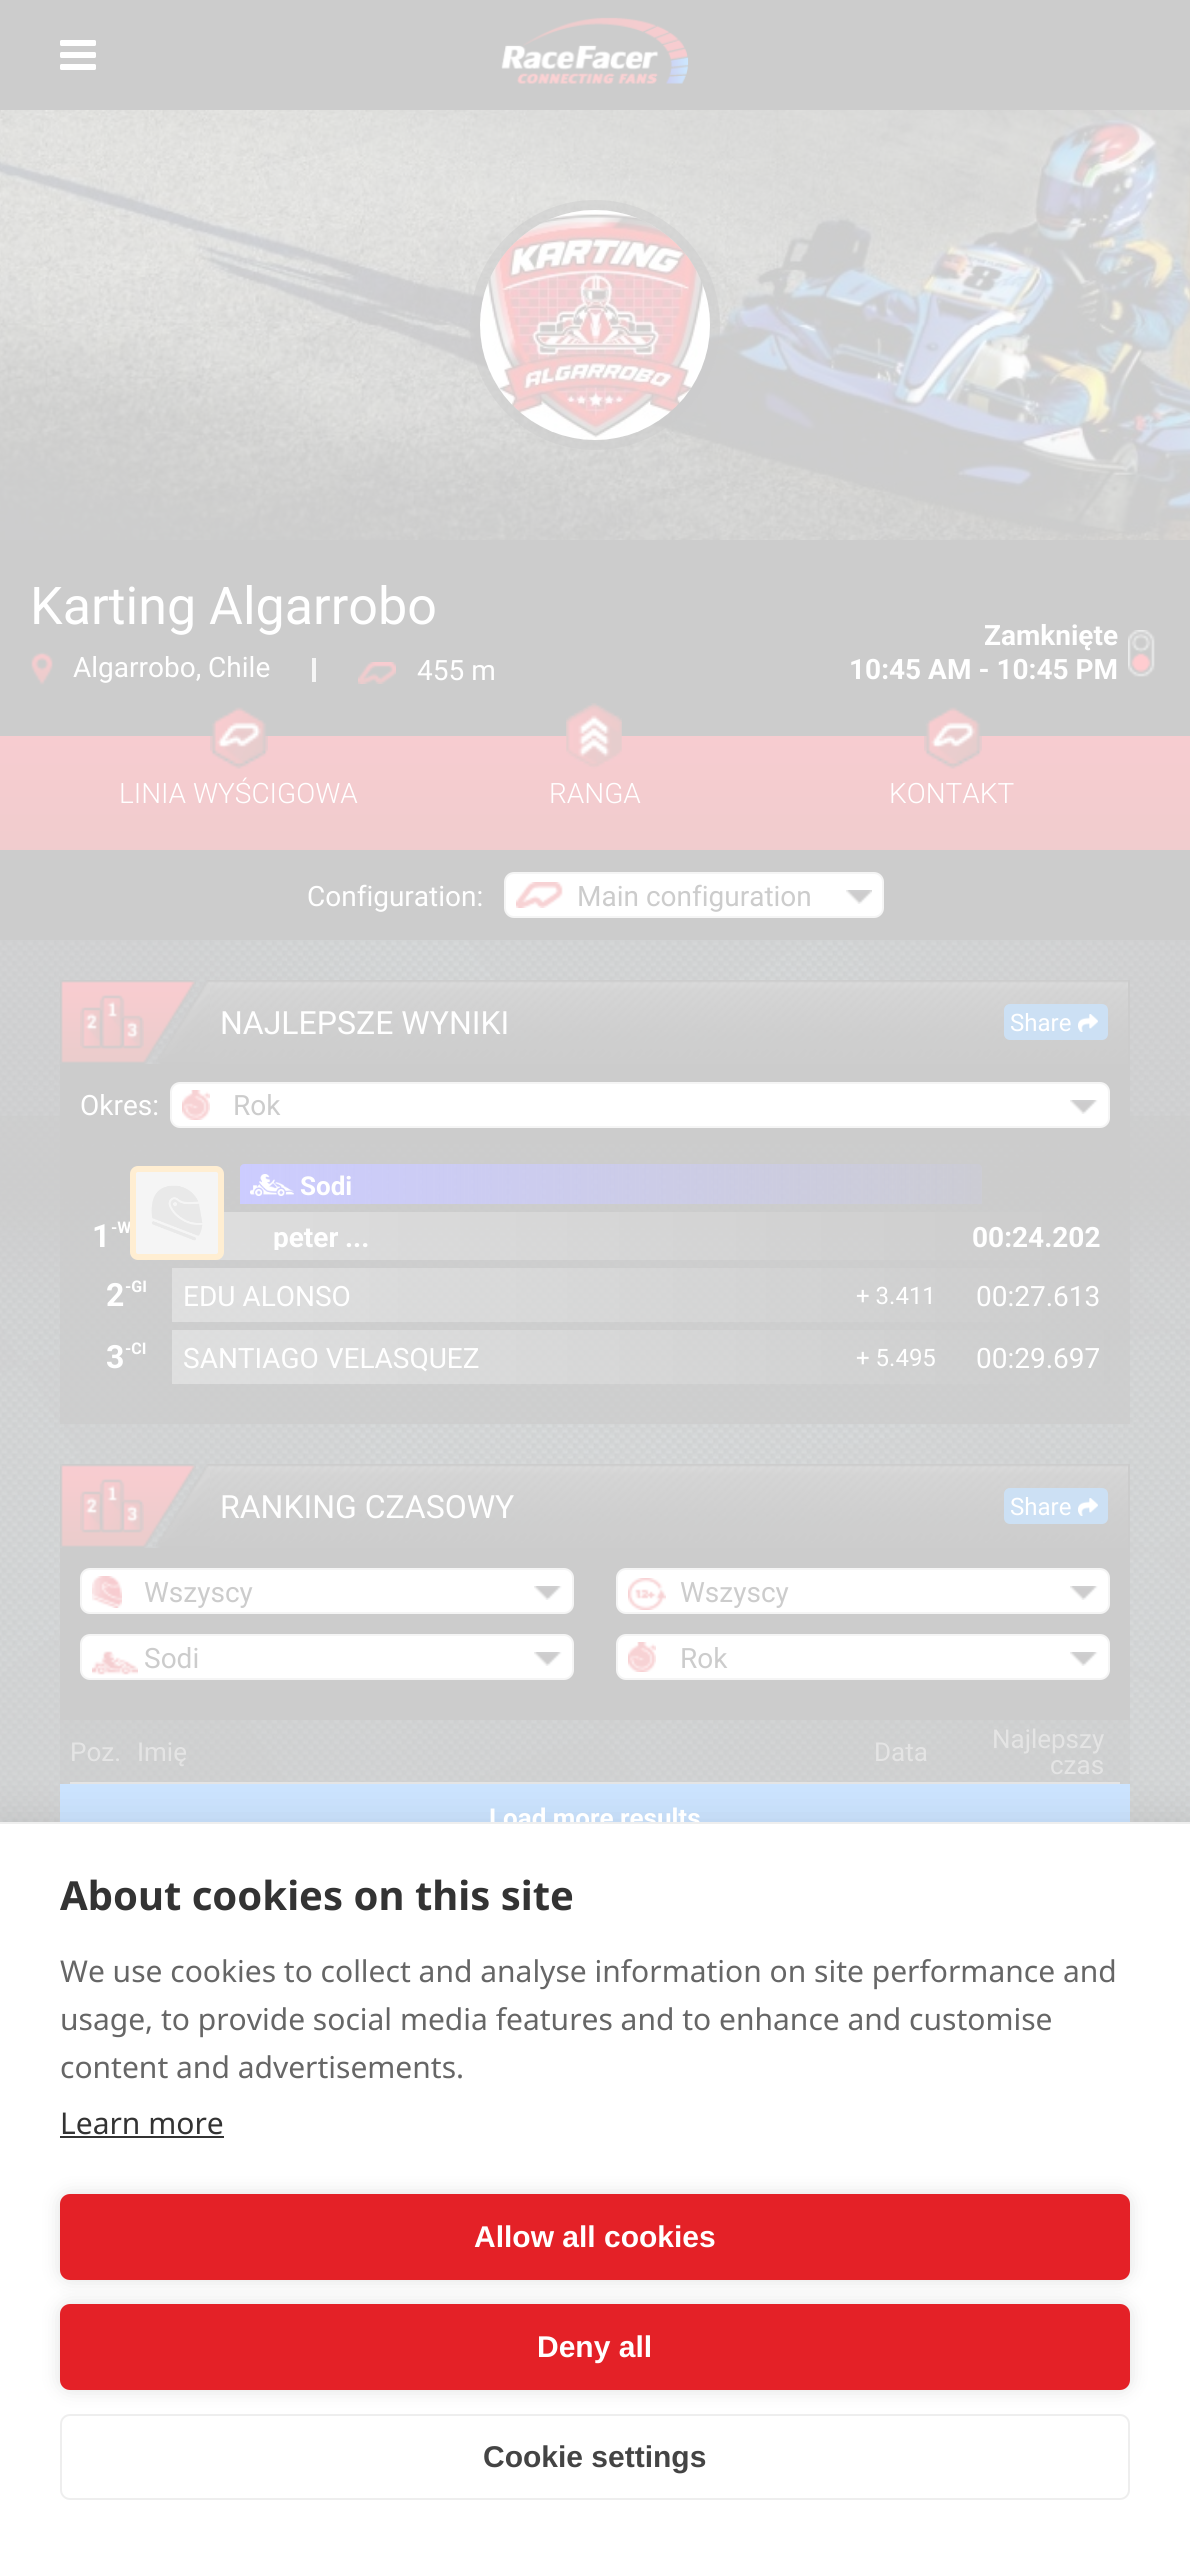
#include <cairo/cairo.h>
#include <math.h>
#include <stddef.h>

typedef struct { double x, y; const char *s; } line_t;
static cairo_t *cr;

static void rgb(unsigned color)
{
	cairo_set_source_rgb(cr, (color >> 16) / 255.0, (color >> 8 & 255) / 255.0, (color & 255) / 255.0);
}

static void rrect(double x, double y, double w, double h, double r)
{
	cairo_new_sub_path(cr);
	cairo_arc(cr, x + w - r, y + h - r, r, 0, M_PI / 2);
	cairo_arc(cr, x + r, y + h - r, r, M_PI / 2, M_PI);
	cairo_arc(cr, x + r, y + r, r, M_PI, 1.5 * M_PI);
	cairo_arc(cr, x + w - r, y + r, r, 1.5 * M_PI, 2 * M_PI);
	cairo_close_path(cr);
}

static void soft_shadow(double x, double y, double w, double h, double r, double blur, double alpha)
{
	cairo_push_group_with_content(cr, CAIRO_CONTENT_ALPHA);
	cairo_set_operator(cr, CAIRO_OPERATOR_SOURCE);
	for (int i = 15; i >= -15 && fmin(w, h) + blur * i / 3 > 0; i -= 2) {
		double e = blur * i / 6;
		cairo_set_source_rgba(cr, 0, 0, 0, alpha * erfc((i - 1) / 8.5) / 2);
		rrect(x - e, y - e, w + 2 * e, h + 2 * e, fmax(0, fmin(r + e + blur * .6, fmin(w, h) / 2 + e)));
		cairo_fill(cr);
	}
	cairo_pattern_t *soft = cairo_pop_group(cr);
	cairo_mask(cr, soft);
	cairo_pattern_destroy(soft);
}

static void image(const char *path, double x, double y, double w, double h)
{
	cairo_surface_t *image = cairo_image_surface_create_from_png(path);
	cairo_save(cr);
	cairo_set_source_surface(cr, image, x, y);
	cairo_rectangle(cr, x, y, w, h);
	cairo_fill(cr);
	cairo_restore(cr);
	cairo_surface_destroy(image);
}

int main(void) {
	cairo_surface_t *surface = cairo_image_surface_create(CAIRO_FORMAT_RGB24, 1190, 2549);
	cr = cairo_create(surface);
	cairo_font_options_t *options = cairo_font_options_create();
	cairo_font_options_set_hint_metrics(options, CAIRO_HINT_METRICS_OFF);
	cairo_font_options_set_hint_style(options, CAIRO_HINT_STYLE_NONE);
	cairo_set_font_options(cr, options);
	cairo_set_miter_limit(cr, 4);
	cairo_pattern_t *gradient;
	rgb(0xffffff);
	cairo_paint(cr);
	rgb(0xcccccc);
	cairo_rectangle(cr, 0, 0, 1190, 110);
	cairo_fill(cr);
	image("img/1.png", 60, 40, 36, 30);
	image("img/2.png", 501, 17, 188, 67);
	image("img/3.png", 0, 940, 1190, 882);
	image("img/4.png", 0, 110, 1190, 430);
	cairo_arc(cr, 595, 325, 120, 0, 2 * M_PI);
	cairo_set_source_rgba(cr, 0.8, 0.8, 0.8, 0.5);
	cairo_set_line_width(cr, 10);
	cairo_stroke(cr);
	image("img/5.png", 480, 210, 230, 230);
	rgb(0xcccccc);
	cairo_rectangle(cr, 0, 540, 1190, 196);
	cairo_fill(cr);
	image("img/6.png", 31, 652, 22, 33);
	rgb(0xf6f6f6);
	cairo_rectangle(cr, 312, 658, 4, 24);
	cairo_fill(cr);
	image("img/7.png", 358, 662, 38, 22);
	image("img/8.png", 1128, 630, 27, 47);
	gradient = cairo_pattern_create_linear(595, 736, 595, 940);
	cairo_pattern_add_color_stop_rgba(gradient, 0, 0.969, 0.8, 0.816, 1);
	cairo_pattern_add_color_stop_rgba(gradient, 1, 0.922, 0.8, 0.8, 1);
	cairo_set_source(cr, gradient);
	cairo_pattern_destroy(gradient);
	cairo_rectangle(cr, 0, 736, 1190, 114);
	cairo_fill(cr);
	image("img/9.png", 210, 707, 58, 62);
	image("img/10.png", 566, 703, 56, 66);
	image("img/9.png", 924, 707, 58, 62);
	rgb(0xcccccc);
	cairo_rectangle(cr, 0, 850, 1190, 90);
	cairo_fill(cr);
	rgb(0xffffff);
	rrect(505, 873, 378, 44, 9);
	cairo_fill_preserve(cr);
	rgb(0xf5f5f5);
	cairo_set_line_width(cr, 2);
	cairo_stroke(cr);
	image("img/11.png", 516, 882, 47, 26);
	image("img/12.png", 846, 890, 26, 14);
	image("img/13.png", 60, 980, 136, 84);
	image("img/14.png", 80, 994, 64, 56);
	image("img/15.png", 210, 980, 918, 84);
	rgb(0xcccccc);
	cairo_rectangle(cr, 1128, 980, 2, 84);
	cairo_fill(cr);
	image("img/16.png", 156, 980, 54, 84);
	rgb(0xcce0f4);
	rrect(1004, 1004, 104, 36, 6);
	cairo_fill(cr);
	image("img/17.png", 1078, 1014, 20, 18);
	rgb(0xcccccc);
	cairo_rectangle(cr, 60, 1064, 1070, 80);
	cairo_fill(cr);
	rgb(0xffffff);
	rrect(171, 1083, 938, 44, 9);
	cairo_fill_preserve(cr);
	rgb(0xf5f5f5);
	cairo_stroke(cr);
	image("img/18.png", 182, 1090, 28, 30);
	image("img/19.png", 1070, 1100, 28, 14);
	cairo_set_source_rgba(cr, 0.8, 0.8, 0.8, 0.7);
	cairo_rectangle(cr, 60, 1144, 1070, 280);
	cairo_fill(cr);
	gradient = cairo_pattern_create_linear(240, 1184, 982, 1184);
	cairo_pattern_add_color_stop_rgba(gradient, 0, 0.8, 0.8, 1, 1);
	cairo_pattern_add_color_stop_rgba(gradient, 1, 0.8, 0.8, 1, 0.15);
	cairo_set_source(cr, gradient);
	cairo_pattern_destroy(gradient);
	cairo_new_path(cr);
	cairo_move_to(cr, 244, 1164);
	cairo_line_to(cr, 978, 1164);
	cairo_curve_to(cr, 980, 1164, 982, 1166, 982, 1168);
	cairo_line_to(cr, 982, 1204);
	cairo_line_to(cr, 240, 1204);
	cairo_line_to(cr, 240, 1168);
	cairo_curve_to(cr, 240, 1166, 242, 1164, 244, 1164);
	cairo_close_path(cr);
	cairo_fill(cr);
	image("img/20.png", 250, 1174, 44, 22);
	image("img/21.png", 216, 1212, 848, 48);
	image("img/22.png", 136, 1172, 82, 82);
	image("img/23.png", 172, 1268, 892, 54);
	image("img/24.png", 172, 1330, 938, 54);
	image("img/25.png", 60, 1464, 136, 84);
	image("img/14.png", 80, 1478, 64, 56);
	image("img/15.png", 210, 1464, 918, 84);
	rgb(0xcccccc);
	cairo_rectangle(cr, 1128, 1464, 2, 84);
	cairo_fill(cr);
	image("img/26.png", 156, 1464, 54, 84);
	rgb(0xcce0f4);
	rrect(1004, 1488, 104, 36, 6);
	cairo_fill(cr);
	image("img/17.png", 1078, 1498, 20, 18);
	rgb(0xcccccc);
	cairo_rectangle(cr, 60, 1548, 1070, 172);
	cairo_fill(cr);
	rgb(0xffffff);
	rrect(81, 1569, 492, 44, 9);
	cairo_fill_preserve(cr);
	rgb(0xf5f5f5);
	cairo_stroke(cr);
	image("img/27.png", 92, 1576, 30, 32);
	image("img/19.png", 534, 1586, 28, 14);
	rgb(0xffffff);
	rrect(617, 1569, 492, 44, 9);
	cairo_fill_preserve(cr);
	rgb(0xf5f5f5);
	cairo_stroke(cr);
	image("img/28.png", 628, 1578, 38, 32);
	image("img/19.png", 1070, 1586, 28, 14);
	rgb(0xffffff);
	rrect(81, 1635, 492, 44, 9);
	cairo_fill_preserve(cr);
	rgb(0xf5f5f5);
	cairo_stroke(cr);
	image("img/29.png", 92, 1651, 46, 24);
	image("img/19.png", 534, 1652, 28, 14);
	rgb(0xffffff);
	rrect(617, 1635, 492, 44, 9);
	cairo_fill_preserve(cr);
	rgb(0xf5f5f5);
	cairo_stroke(cr);
	image("img/18.png", 628, 1642, 28, 30);
	image("img/19.png", 1070, 1652, 28, 14);
	cairo_set_source_rgba(cr, 0.8, 0.8, 0.8, 0.4);
	cairo_rectangle(cr, 60, 1720, 1070, 64);
	cairo_fill(cr);
	rgb(0xe4e4e4);
	cairo_rectangle(cr, 70, 1782, 1050, 2);
	cairo_fill(cr);
	rgb(0xcce4ff);
	cairo_rectangle(cr, 60, 1784, 1070, 38);
	cairo_fill(cr);
	rgb(0x000000);
	soft_shadow(0, 1822, 1190, 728, 0, 20, 0.1);
	rgb(0xffffff);
	cairo_rectangle(cr, 0, 1824, 1190, 725);
	cairo_fill(cr);
	rgb(0x333333);
	cairo_rectangle(cr, 60, 2136, 164, 2);
	cairo_fill(cr);
	rgb(0x000000);
	soft_shadow(60, 2194, 1070, 86, 10, 10, 0.12);
	rgb(0xe42127);
	rrect(60, 2194, 1070, 86, 10);
	cairo_fill(cr);
	rgb(0x000000);
	soft_shadow(60, 2304, 1070, 86, 10, 10, 0.12);
	rgb(0xe42127);
	rrect(60, 2304, 1070, 86, 10);
	cairo_fill(cr);
	rrect(61, 2415, 1068, 84, 9);
	rgb(0xeeeeee);
	cairo_stroke(cr);
	cairo_select_font_face(cr, "Roboto", CAIRO_FONT_SLANT_NORMAL, CAIRO_FONT_WEIGHT_NORMAL);
	cairo_set_font_size(cr, 52);
	rgb(0xffffff);
	cairo_move_to(cr, 30, 624);
	cairo_show_text(cr, "Karting Algarrobo");
	cairo_set_font_size(cr, 28);
	cairo_move_to(cr, 73, 677);
	cairo_show_text(cr, "Algarrobo, Chile");
	cairo_move_to(cr, 417, 680);
	cairo_show_text(cr, "455 m");
	cairo_select_font_face(cr, "Roboto", CAIRO_FONT_SLANT_NORMAL, CAIRO_FONT_WEIGHT_BOLD);
	cairo_move_to(cr, 984, 645);
	cairo_show_text(cr, "Zamknięte");
	cairo_move_to(cr, 849, 679);
	cairo_show_text(cr, "10:45 AM - 10:45 PM");
	cairo_select_font_face(cr, "Roboto Light", CAIRO_FONT_SLANT_NORMAL, CAIRO_FONT_WEIGHT_NORMAL);
	{
		static const line_t items[] = {
			{119, 803, "LINIA WYŚCIGOWA"},
			{549, 803, "RANGA"},
			{889, 803, "KONTAKT"},
		};
		for (size_t i = 0; i < sizeof items / sizeof *items; i++) {
			cairo_move_to(cr, items[i].x, items[i].y);
			cairo_show_text(cr, items[i].s);
		}
	}
	cairo_select_font_face(cr, "Roboto", CAIRO_FONT_SLANT_NORMAL, CAIRO_FONT_WEIGHT_NORMAL);
	cairo_move_to(cr, 307, 906);
	cairo_show_text(cr, "Configuration:");
	rgb(0xcccccc);
	cairo_move_to(cr, 577, 906);
	cairo_show_text(cr, "Main configuration");
	cairo_set_font_size(cr, 32);
	rgb(0xffffff);
	cairo_move_to(cr, 220, 1034);
	cairo_show_text(cr, "NAJLEPSZE WYNIKI");
	cairo_set_font_size(cr, 24);
	cairo_move_to(cr, 1010, 1031);
	cairo_show_text(cr, "Share");
	cairo_set_font_size(cr, 28);
	cairo_move_to(cr, 80, 1115);
	cairo_show_text(cr, "Okres:");
	rgb(0xcccccc);
	cairo_move_to(cr, 233, 1115);
	cairo_show_text(cr, "Rok");
	cairo_select_font_face(cr, "Roboto", CAIRO_FONT_SLANT_NORMAL, CAIRO_FONT_WEIGHT_BOLD);
	cairo_set_font_size(cr, 26);
	rgb(0xffffff);
	cairo_move_to(cr, 300, 1195);
	cairo_show_text(cr, "Sodi");
	cairo_set_font_size(cr, 32);
	cairo_move_to(cr, 92, 1247);
	cairo_show_text(cr, "1");
	cairo_set_font_size(cr, 16);
	cairo_move_to(cr, 111, 1233);
	cairo_show_text(cr, "-W");
	rrect(133, 1169, 88, 88, 5);
	rgb(0xffeed2);
	cairo_set_line_width(cr, 6);
	cairo_stroke(cr);
	cairo_save(cr);
	cairo_rectangle(cr, 172, 1222, 800, 28);
	cairo_clip(cr);
	cairo_set_font_size(cr, 28);
	rgb(0xffffff);
	cairo_move_to(cr, 273, 1247);
	cairo_show_text(cr, "peter");
	cairo_restore(cr);
	cairo_set_font_size(cr, 28);
	rgb(0xffffff);
	cairo_move_to(cr, 345, 1247);
	cairo_show_text(cr, "...");
	cairo_move_to(cr, 972, 1247);
	cairo_show_text(cr, "00:24.202");
	cairo_set_font_size(cr, 32);
	cairo_move_to(cr, 106, 1306);
	cairo_show_text(cr, "2");
	cairo_set_font_size(cr, 16);
	cairo_move_to(cr, 125, 1292);
	cairo_show_text(cr, "-GI");
	cairo_select_font_face(cr, "Roboto", CAIRO_FONT_SLANT_NORMAL, CAIRO_FONT_WEIGHT_NORMAL);
	cairo_set_font_size(cr, 28);
	cairo_move_to(cr, 183, 1306);
	cairo_show_text(cr, "EDU ALONSO");
	cairo_set_font_size(cr, 24);
	cairo_move_to(cr, 856, 1304);
	cairo_show_text(cr, "+ 3.411");
	cairo_set_font_size(cr, 28);
	cairo_move_to(cr, 976, 1306);
	cairo_show_text(cr, "00:27.613");
	cairo_select_font_face(cr, "Roboto", CAIRO_FONT_SLANT_NORMAL, CAIRO_FONT_WEIGHT_BOLD);
	cairo_set_font_size(cr, 32);
	cairo_move_to(cr, 106, 1368);
	cairo_show_text(cr, "3");
	cairo_set_font_size(cr, 16);
	cairo_move_to(cr, 125, 1354);
	cairo_show_text(cr, "-CI");
	cairo_select_font_face(cr, "Roboto", CAIRO_FONT_SLANT_NORMAL, CAIRO_FONT_WEIGHT_NORMAL);
	cairo_set_font_size(cr, 28);
	cairo_move_to(cr, 183, 1368);
	cairo_show_text(cr, "SANTIAGO VELASQUEZ");
	cairo_set_font_size(cr, 24);
	cairo_move_to(cr, 856, 1366);
	cairo_show_text(cr, "+ 5.495");
	cairo_set_font_size(cr, 28);
	cairo_move_to(cr, 976, 1368);
	cairo_show_text(cr, "00:29.697");
	cairo_set_font_size(cr, 32);
	cairo_move_to(cr, 220, 1518);
	cairo_show_text(cr, "RANKING CZASOWY");
	cairo_set_font_size(cr, 24);
	cairo_move_to(cr, 1010, 1515);
	cairo_show_text(cr, "Share");
	cairo_set_font_size(cr, 28);
	rgb(0xcccccc);
	{
		static const line_t items[] = {
			{144, 1602, "Wszyscy"},
			{680, 1602, "Wszyscy"},
			{144, 1668, "Sodi"},
			{680, 1668, "Rok"},
		};
		for (size_t i = 0; i < sizeof items / sizeof *items; i++) {
			cairo_move_to(cr, items[i].x, items[i].y);
			cairo_show_text(cr, items[i].s);
		}
	}
	cairo_set_font_size(cr, 26);
	rgb(0xe4e4e4);
	{
		static const line_t items[] = {
			{70, 1761, "Poz."},
			{137, 1761, "Imię"},
			{874, 1761, "Data"},
			{992, 1748, "Najlepszy"},
			{1050, 1774, "czas"},
		};
		for (size_t i = 0; i < sizeof items / sizeof *items; i++) {
			cairo_move_to(cr, items[i].x, items[i].y);
			cairo_show_text(cr, items[i].s);
		}
	}
	cairo_select_font_face(cr, "Roboto", CAIRO_FONT_SLANT_NORMAL, CAIRO_FONT_WEIGHT_BOLD);
	rgb(0xffffff);
	cairo_move_to(cr, 489, 1827);
	cairo_show_text(cr, "Load more results");
	rgb(0xeeeeee);
	cairo_rectangle(cr, 0, 1822, 1190, 2);
	cairo_fill(cr);
	cairo_select_font_face(cr, "Noto Sans", CAIRO_FONT_SLANT_NORMAL, CAIRO_FONT_WEIGHT_BOLD);
	cairo_set_font_size(cr, 40);
	rgb(0x333333);
	cairo_move_to(cr, 60, 1910);
	cairo_show_text(cr, "About cookies on this site");
	cairo_select_font_face(cr, "Noto Sans", CAIRO_FONT_SLANT_NORMAL, CAIRO_FONT_WEIGHT_NORMAL);
	cairo_set_font_size(cr, 30);
	rgb(0x666666);
	{
		static const line_t items[] = {
			{60, 1982, "We use cookies to collect and analyse information on site performance and"},
			{60, 2030, "usage, to provide social media features and to enhance and customise"},
			{60, 2078, "content and advertisements."},
		};
		for (size_t i = 0; i < sizeof items / sizeof *items; i++) {
			cairo_move_to(cr, items[i].x, items[i].y);
			cairo_show_text(cr, items[i].s);
		}
	}
	rgb(0x333333);
	cairo_move_to(cr, 60, 2134);
	cairo_show_text(cr, "Learn more");
	cairo_select_font_face(cr, "Liberation Sans", CAIRO_FONT_SLANT_NORMAL, CAIRO_FONT_WEIGHT_BOLD);
	rgb(0xffffff);
	cairo_move_to(cr, 474, 2247);
	cairo_show_text(cr, "Allow all cookies");
	cairo_move_to(cr, 537, 2357);
	cairo_show_text(cr, "Deny all");
	rgb(0x444444);
	cairo_move_to(cr, 483, 2467);
	cairo_show_text(cr, "Cookie settings");
	cairo_surface_write_to_png(surface, "page.png");
	cairo_font_options_destroy(options);
	cairo_destroy(cr);
	cairo_surface_destroy(surface);
	return 0;
}
